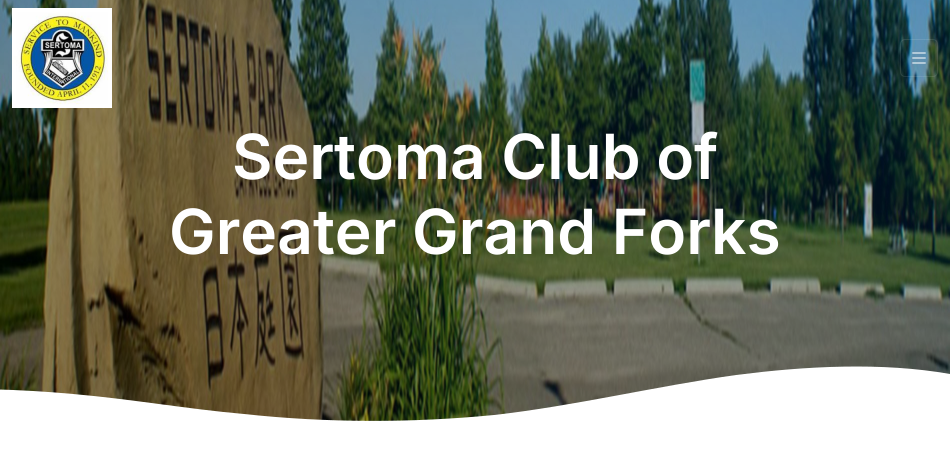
#include <cairo/cairo.h>
#include <math.h>
#include <stddef.h>

static cairo_t *cr;

static void rgb(unsigned color)
{
	cairo_set_source_rgb(cr, (color >> 16) / 255.0, (color >> 8 & 255) / 255.0, (color & 255) / 255.0);
}

static void rrect(double x, double y, double w, double h, double r)
{
	cairo_new_sub_path(cr);
	cairo_arc(cr, x + w - r, y + h - r, r, 0, M_PI / 2);
	cairo_arc(cr, x + r, y + h - r, r, M_PI / 2, M_PI);
	cairo_arc(cr, x + r, y + r, r, M_PI, 1.5 * M_PI);
	cairo_arc(cr, x + w - r, y + r, r, 1.5 * M_PI, 2 * M_PI);
	cairo_close_path(cr);
}

static void image(const char *path, double x, double y, double w, double h)
{
	cairo_surface_t *image = cairo_image_surface_create_from_png(path);
	cairo_save(cr);
	cairo_set_source_surface(cr, image, x, y);
	cairo_rectangle(cr, x, y, w, h);
	cairo_fill(cr);
	cairo_restore(cr);
	cairo_surface_destroy(image);
}

int main(void) {
	cairo_surface_t *surface = cairo_image_surface_create(CAIRO_FORMAT_RGB24, 950, 457);
	cr = cairo_create(surface);
	cairo_font_options_t *options = cairo_font_options_create();
	cairo_font_options_set_hint_metrics(options, CAIRO_HINT_METRICS_OFF);
	cairo_font_options_set_hint_style(options, CAIRO_HINT_STYLE_NONE);
	cairo_set_font_options(cr, options);
	cairo_set_miter_limit(cr, 4);
	rgb(0xffffff);
	cairo_paint(cr);
	image("img/3.png", 0, 0, 950, 421);
	image("img/1.png", 12, 8, 100, 100);
	rrect(900.5, 39.5, 37, 37, 4.5);
	cairo_set_source_rgba(cr, 1, 1, 1, 0.1);
	cairo_set_line_width(cr, 1);
	cairo_stroke(cr);
	image("img/2.png", 912, 52, 14, 12);
	cairo_save(cr);
	cairo_rectangle(cr, 0, 361, 950, 60);
	cairo_clip(cr);
	rgb(0xffffff);
	cairo_new_path(cr);
	cairo_move_to(cr, 73, 394);
	cairo_curve_to(cr, 131, 399, 187, 409, 244, 414);
	cairo_curve_to(cr, 327, 423, 412, 423, 494, 415);
	cairo_curve_to(cr, 574, 406, 657, 386, 736, 375);
	cairo_curve_to(cr, 806, 366, 882, 362, 950, 374);
	cairo_line_to(cr, 950, 422);
	cairo_line_to(cr, -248, 422);
	cairo_line_to(cr, -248, 408);
	cairo_curve_to(cr, -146, 389, -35, 384, 73, 394);
	cairo_close_path(cr);
	cairo_fill(cr);
	cairo_restore(cr);
	cairo_select_font_face(cr, "Inter SemiBold", CAIRO_FONT_SLANT_NORMAL, CAIRO_FONT_WEIGHT_NORMAL);
	cairo_set_font_size(cr, 62.25);
	rgb(0xffffff);
	cairo_move_to(cr, 232, 179);
	cairo_show_text(cr, "Sertoma Club of");
	cairo_move_to(cr, 169, 254);
	cairo_show_text(cr, "Greater Grand Forks");
	cairo_surface_write_to_png(surface, "page.png");
	cairo_font_options_destroy(options);
	cairo_destroy(cr);
	cairo_surface_destroy(surface);
	return 0;
}
